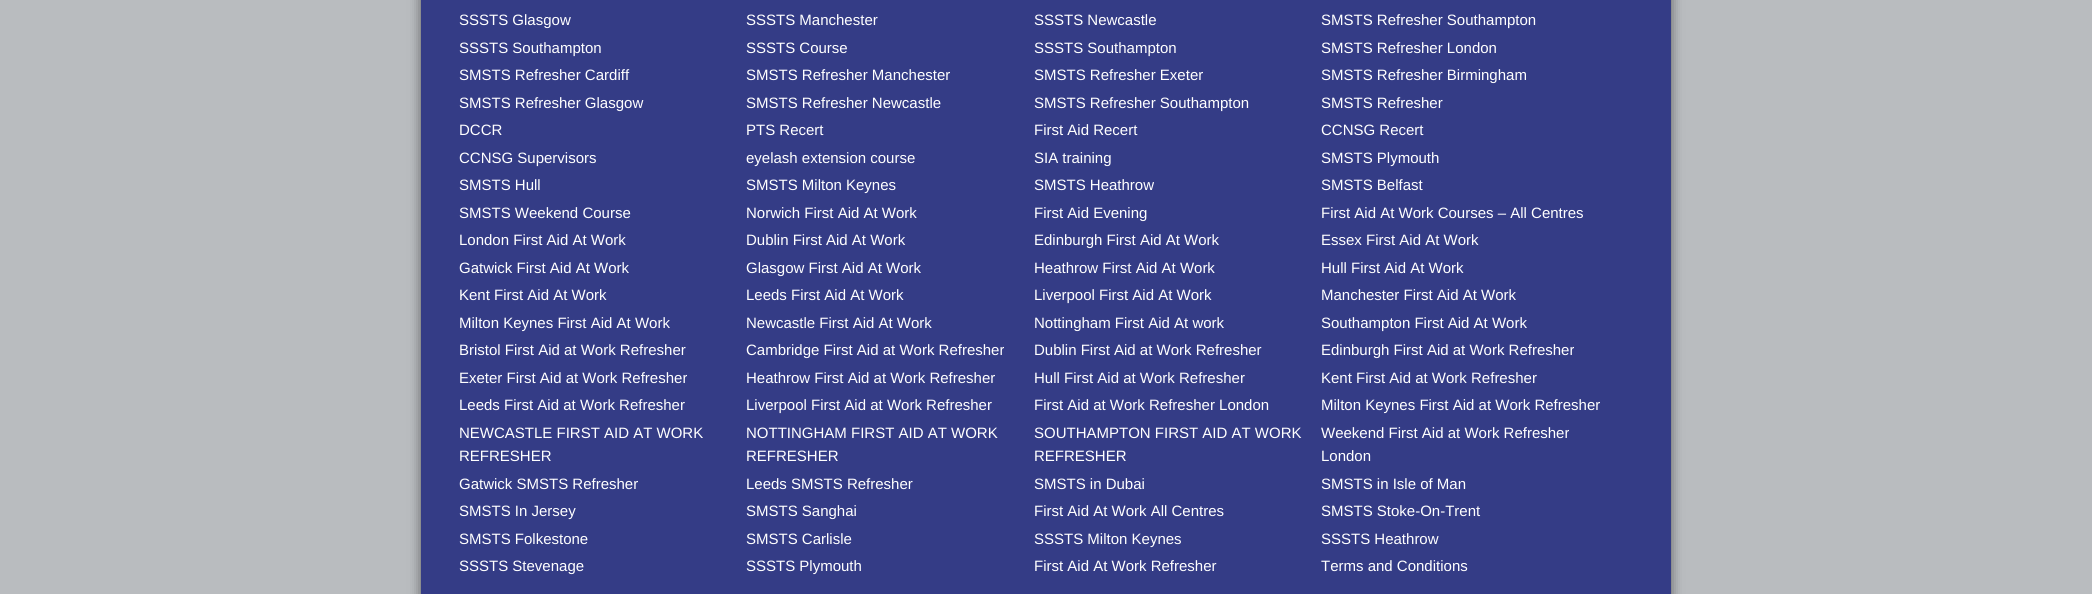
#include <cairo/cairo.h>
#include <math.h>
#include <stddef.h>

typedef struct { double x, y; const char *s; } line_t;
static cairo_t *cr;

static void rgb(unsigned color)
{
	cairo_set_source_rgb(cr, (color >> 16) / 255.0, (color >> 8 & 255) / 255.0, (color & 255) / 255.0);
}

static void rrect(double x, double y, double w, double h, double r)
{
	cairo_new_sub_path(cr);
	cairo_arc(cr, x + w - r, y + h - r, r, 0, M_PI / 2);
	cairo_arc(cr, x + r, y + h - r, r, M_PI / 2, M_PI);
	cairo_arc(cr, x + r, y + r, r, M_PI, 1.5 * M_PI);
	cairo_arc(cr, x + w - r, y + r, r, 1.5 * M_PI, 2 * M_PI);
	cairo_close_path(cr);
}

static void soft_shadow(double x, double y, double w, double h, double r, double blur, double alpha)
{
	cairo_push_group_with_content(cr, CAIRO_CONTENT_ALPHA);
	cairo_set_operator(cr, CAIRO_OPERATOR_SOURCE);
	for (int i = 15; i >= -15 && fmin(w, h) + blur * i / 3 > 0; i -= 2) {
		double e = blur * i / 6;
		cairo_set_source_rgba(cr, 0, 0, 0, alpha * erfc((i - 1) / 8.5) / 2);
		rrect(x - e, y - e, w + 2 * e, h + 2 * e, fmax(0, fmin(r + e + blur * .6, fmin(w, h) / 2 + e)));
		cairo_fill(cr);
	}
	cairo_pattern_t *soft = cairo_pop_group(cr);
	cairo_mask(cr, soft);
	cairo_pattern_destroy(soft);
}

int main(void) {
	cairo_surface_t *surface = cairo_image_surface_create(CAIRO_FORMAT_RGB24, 2092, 594);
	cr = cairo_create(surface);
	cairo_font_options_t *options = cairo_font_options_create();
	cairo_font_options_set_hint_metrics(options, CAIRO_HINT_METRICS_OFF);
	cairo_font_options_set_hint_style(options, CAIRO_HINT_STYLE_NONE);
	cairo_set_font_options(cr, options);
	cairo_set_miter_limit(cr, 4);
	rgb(0xb9bcbf);
	cairo_paint(cr);
	rgb(0x000000);
	soft_shadow(421, -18, 1250, 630, 0, 6, 0.5);
	rgb(0x343c86);
	cairo_rectangle(cr, 421, 0, 1250, 594);
	cairo_fill(cr);
	cairo_select_font_face(cr, "Liberation Sans", CAIRO_FONT_SLANT_NORMAL, CAIRO_FONT_WEIGHT_NORMAL);
	cairo_set_font_size(cr, 15);
	rgb(0xffffff);
	{
		static const line_t items[] = {
			{459, 25, "SSSTS Glasgow"},
			{746, 25, "SSSTS Manchester"},
			{1034, 25, "SSSTS Newcastle"},
			{1321, 25, "SMSTS Refresher Southampton"},
			{459, 53, "SSSTS Southampton"},
			{746, 53, "SSSTS Course"},
			{1034, 53, "SSSTS Southampton"},
			{1321, 53, "SMSTS Refresher London"},
			{459, 80, "SMSTS Refresher Cardiff"},
			{746, 80, "SMSTS Refresher Manchester"},
			{1034, 80, "SMSTS Refresher Exeter"},
			{1321, 80, "SMSTS Refresher Birmingham"},
			{459, 108, "SMSTS Refresher Glasgow"},
			{746, 108, "SMSTS Refresher Newcastle"},
			{1034, 108, "SMSTS Refresher Southampton"},
			{1321, 108, "SMSTS Refresher"},
			{459, 135, "DCCR"},
			{746, 135, "PTS Recert"},
			{1034, 135, "First Aid Recert"},
			{1321, 135, "CCNSG Recert"},
			{459, 163, "CCNSG Supervisors"},
			{746, 163, "eyelash extension course"},
			{1034, 163, "SIA training"},
			{1321, 163, "SMSTS Plymouth"},
			{459, 190, "SMSTS Hull"},
			{746, 190, "SMSTS Milton Keynes"},
			{1034, 190, "SMSTS Heathrow"},
			{1321, 190, "SMSTS Belfast"},
			{459, 218, "SMSTS Weekend Course"},
			{746, 218, "Norwich First Aid At Work"},
			{1034, 218, "First Aid Evening"},
			{1321, 218, "First Aid At Work Courses – All Centres"},
			{459, 245, "London First Aid At Work"},
			{746, 245, "Dublin First Aid At Work"},
			{1034, 245, "Edinburgh First Aid At Work"},
			{1321, 245, "Essex First Aid At Work"},
			{459, 273, "Gatwick First Aid At Work"},
			{746, 273, "Glasgow First Aid At Work"},
			{1034, 273, "Heathrow First Aid At Work"},
			{1321, 273, "Hull First Aid At Work"},
			{459, 300, "Kent First Aid At Work"},
			{746, 300, "Leeds First Aid At Work"},
			{1034, 300, "Liverpool First Aid At Work"},
			{1321, 300, "Manchester First Aid At Work"},
			{459, 328, "Milton Keynes First Aid At Work"},
			{746, 328, "Newcastle First Aid At Work"},
			{1034, 328, "Nottingham First Aid At work"},
			{1321, 328, "Southampton First Aid At Work"},
			{459, 355, "Bristol First Aid at Work Refresher"},
			{746, 355, "Cambridge First Aid at Work Refresher"},
			{1034, 355, "Dublin First Aid at Work Refresher"},
			{1321, 355, "Edinburgh First Aid at Work Refresher"},
			{459, 383, "Exeter First Aid at Work Refresher"},
			{746, 383, "Heathrow First Aid at Work Refresher"},
			{1034, 383, "Hull First Aid at Work Refresher"},
			{1321, 383, "Kent First Aid at Work Refresher"},
			{459, 410, "Leeds First Aid at Work Refresher"},
			{746, 410, "Liverpool First Aid at Work Refresher"},
			{1034, 410, "First Aid at Work Refresher London"},
			{1321, 410, "Milton Keynes First Aid at Work Refresher"},
			{459, 438, "NEWCASTLE FIRST AID AT WORK"},
			{459, 461, "REFRESHER"},
			{746, 438, "NOTTINGHAM FIRST AID AT WORK"},
			{746, 461, "REFRESHER"},
			{1034, 438, "SOUTHAMPTON FIRST AID AT WORK"},
			{1034, 461, "REFRESHER"},
			{1321, 438, "Weekend First Aid at Work Refresher"},
			{1321, 461, "London"},
			{459, 489, "Gatwick SMSTS Refresher"},
			{746, 489, "Leeds SMSTS Refresher"},
			{1034, 489, "SMSTS in Dubai"},
			{1321, 489, "SMSTS in Isle of Man"},
			{459, 516, "SMSTS In Jersey"},
			{746, 516, "SMSTS Sanghai"},
			{1034, 516, "First Aid At Work All Centres"},
			{1321, 516, "SMSTS Stoke-On-Trent"},
			{459, 544, "SMSTS Folkestone"},
			{746, 544, "SMSTS Carlisle"},
			{1034, 544, "SSSTS Milton Keynes"},
			{1321, 544, "SSSTS Heathrow"},
			{459, 571, "SSSTS Stevenage"},
			{746, 571, "SSSTS Plymouth"},
			{1034, 571, "First Aid At Work Refresher"},
			{1321, 571, "Terms and Conditions"},
		};
		for (size_t i = 0; i < sizeof items / sizeof *items; i++) {
			cairo_move_to(cr, items[i].x, items[i].y);
			cairo_show_text(cr, items[i].s);
		}
	}
	cairo_surface_write_to_png(surface, "page.png");
	cairo_font_options_destroy(options);
	cairo_destroy(cr);
	cairo_surface_destroy(surface);
	return 0;
}
